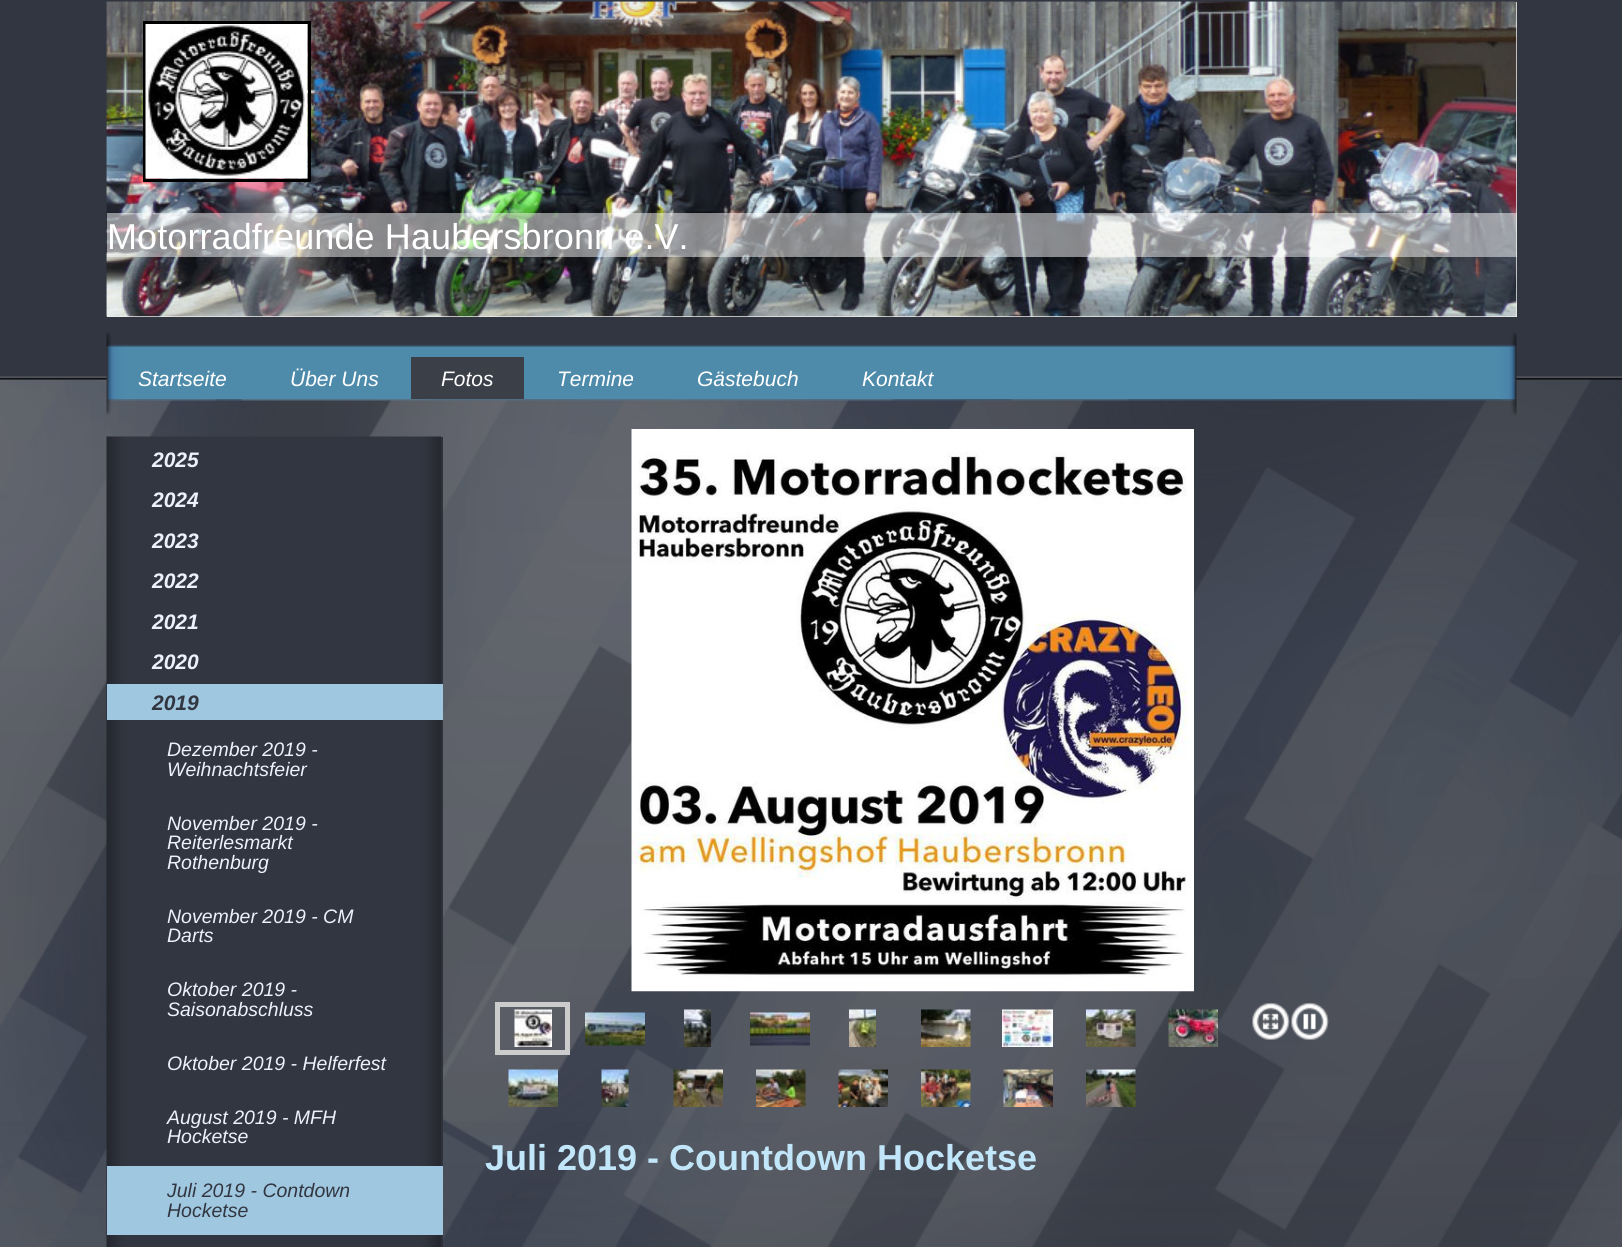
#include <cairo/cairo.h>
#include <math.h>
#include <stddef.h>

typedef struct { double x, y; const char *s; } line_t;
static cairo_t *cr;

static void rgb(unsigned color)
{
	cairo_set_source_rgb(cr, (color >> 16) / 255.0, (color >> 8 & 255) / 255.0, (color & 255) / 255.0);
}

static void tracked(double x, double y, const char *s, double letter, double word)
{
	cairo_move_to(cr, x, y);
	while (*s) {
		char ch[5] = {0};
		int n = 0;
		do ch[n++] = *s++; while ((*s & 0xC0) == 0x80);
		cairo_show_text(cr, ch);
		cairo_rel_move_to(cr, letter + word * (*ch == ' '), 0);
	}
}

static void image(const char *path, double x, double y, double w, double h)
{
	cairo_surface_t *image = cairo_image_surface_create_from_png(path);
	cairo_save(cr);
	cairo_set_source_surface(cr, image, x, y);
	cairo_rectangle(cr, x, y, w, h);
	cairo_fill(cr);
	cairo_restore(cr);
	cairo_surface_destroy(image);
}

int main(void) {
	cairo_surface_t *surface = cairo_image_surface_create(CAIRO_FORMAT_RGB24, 1622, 1247);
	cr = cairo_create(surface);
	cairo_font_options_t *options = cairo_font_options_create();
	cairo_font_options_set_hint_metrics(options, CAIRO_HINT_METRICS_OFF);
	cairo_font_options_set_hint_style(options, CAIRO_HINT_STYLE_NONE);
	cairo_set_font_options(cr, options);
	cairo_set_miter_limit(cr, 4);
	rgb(0x323640);
	cairo_paint(cr);
	image("img/1.png", 0, 376, 1622, 871);
	image("img/2.png", 106, 1, 1411, 316);
	rgb(0xeeeeee);
	cairo_rectangle(cr, 107, 2, 1410, 315);
	cairo_fill(cr);
	image("img/3.png", 106, 1, 1411, 316);
	cairo_rectangle(cr, 144.5, 22.5, 165, 158);
	rgb(0x000000);
	cairo_set_line_width(cr, 3);
	cairo_stroke(cr);
	image("img/4.png", 145, 24, 163, 155);
	cairo_set_source_rgba(cr, 1, 1, 1, 0.5);
	cairo_rectangle(cr, 107, 213, 1410, 44);
	cairo_fill(cr);
	image("img/5.png", 106, 332, 1411, 15);
	image("img/6.png", 106, 346, 1411, 53);
	rgb(0x3b3f48);
	cairo_rectangle(cr, 411, 357, 113, 42);
	cairo_fill(cr);
	image("img/7.png", 106, 399, 1411, 17);
	rgb(0x2e313a);
	cairo_rectangle(cr, 441, 437, 2, 810);
	cairo_fill(cr);
	image("img/8.png", 106, 436, 335, 811);
	rgb(0x9fc7e0);
	cairo_rectangle(cr, 107, 684, 336, 36);
	cairo_fill(cr);
	cairo_rectangle(cr, 107, 1166, 336, 69);
	cairo_fill(cr);
	image("img/9.png", 631, 429, 563, 563);
	cairo_rectangle(cr, 497.5, 1004.5, 70, 48);
	rgb(0xcccccc);
	cairo_set_line_width(cr, 5);
	cairo_stroke(cr);
	image("img/10.png", 514, 1009, 38, 38);
	image("img/11.png", 585, 1012, 60, 34);
	image("img/12.png", 684, 1009, 27, 38);
	image("img/13.png", 750, 1012, 60, 34);
	image("img/14.png", 849, 1009, 27, 38);
	image("img/15.png", 921, 1009, 50, 38);
	image("img/16.png", 1002, 1009, 51, 38);
	image("img/17.png", 1086, 1009, 50, 38);
	image("img/18.png", 1168, 1009, 50, 38);
	image("img/19.png", 1252, 1002, 38, 38);
	image("img/20.png", 1291, 1002, 38, 38);
	image("img/21.png", 508, 1069, 50, 38);
	image("img/22.png", 601, 1069, 28, 38);
	image("img/23.png", 673, 1069, 50, 38);
	image("img/24.png", 756, 1069, 50, 38);
	image("img/25.png", 838, 1069, 50, 38);
	image("img/26.png", 921, 1069, 50, 38);
	image("img/27.png", 1003, 1069, 50, 38);
	image("img/28.png", 1086, 1069, 50, 38);
	cairo_select_font_face(cr, "Liberation Sans", CAIRO_FONT_SLANT_NORMAL, CAIRO_FONT_WEIGHT_NORMAL);
	cairo_set_font_size(cr, 36);
	rgb(0xffffff);
	tracked(107, 249, "Motorradfreunde Haubersbronn e.V.", 0.1, 0);
	cairo_select_font_face(cr, "Liberation Sans", CAIRO_FONT_SLANT_ITALIC, CAIRO_FONT_WEIGHT_NORMAL);
	cairo_set_font_size(cr, 21);
	{
		static const line_t items[] = {
			{138, 386, "Startseite"},
			{290, 386, "Über Uns"},
			{441, 386, "Fotos"},
			{557, 386, "Termine"},
			{697, 386, "Gästebuch"},
			{862, 386, "Kontakt"},
		};
		for (size_t i = 0; i < sizeof items / sizeof *items; i++) {
			cairo_move_to(cr, items[i].x, items[i].y);
			cairo_show_text(cr, items[i].s);
		}
	}
	cairo_select_font_face(cr, "Liberation Sans", CAIRO_FONT_SLANT_ITALIC, CAIRO_FONT_WEIGHT_BOLD);
	rgb(0xebf2fd);
	{
		static const line_t items[] = {
			{152, 467, "2025"},
			{152, 507, "2024"},
			{152, 548, "2023"},
			{152, 588, "2022"},
			{152, 629, "2021"},
			{152, 669, "2020"},
		};
		for (size_t i = 0; i < sizeof items / sizeof *items; i++) {
			cairo_move_to(cr, items[i].x, items[i].y);
			cairo_show_text(cr, items[i].s);
		}
	}
	rgb(0x323640);
	cairo_move_to(cr, 152, 710);
	cairo_show_text(cr, "2019");
	cairo_select_font_face(cr, "Liberation Sans", CAIRO_FONT_SLANT_ITALIC, CAIRO_FONT_WEIGHT_NORMAL);
	cairo_set_font_size(cr, 19.5);
	rgb(0xebf2fd);
	{
		static const line_t items[] = {
			{167, 756, "Dezember 2019 -"},
			{167, 776, "Weihnachtsfeier"},
			{167, 830, "November 2019 -"},
			{167, 849, "Reiterlesmarkt"},
			{167, 869, "Rothenburg"},
			{167, 923, "November 2019 - CM"},
			{167, 942, "Darts"},
			{167, 996, "Oktober 2019 -"},
			{167, 1016, "Saisonabschluss"},
			{167, 1070, "Oktober 2019 - Helferfest"},
			{167, 1124, "August 2019 - MFH"},
			{167, 1143, "Hocketse"},
		};
		for (size_t i = 0; i < sizeof items / sizeof *items; i++) {
			cairo_move_to(cr, items[i].x, items[i].y);
			cairo_show_text(cr, items[i].s);
		}
	}
	rgb(0x323640);
	cairo_move_to(cr, 167, 1197);
	cairo_show_text(cr, "Juli 2019 - Contdown");
	cairo_move_to(cr, 167, 1217);
	cairo_show_text(cr, "Hocketse");
	cairo_select_font_face(cr, "Liberation Sans", CAIRO_FONT_SLANT_NORMAL, CAIRO_FONT_WEIGHT_BOLD);
	cairo_set_font_size(cr, 36);
	rgb(0xc2e6f9);
	cairo_move_to(cr, 485, 1170);
	cairo_show_text(cr, "Juli 2019 - Countdown Hocketse");
	cairo_surface_write_to_png(surface, "page.png");
	cairo_font_options_destroy(options);
	cairo_destroy(cr);
	cairo_surface_destroy(surface);
	return 0;
}
